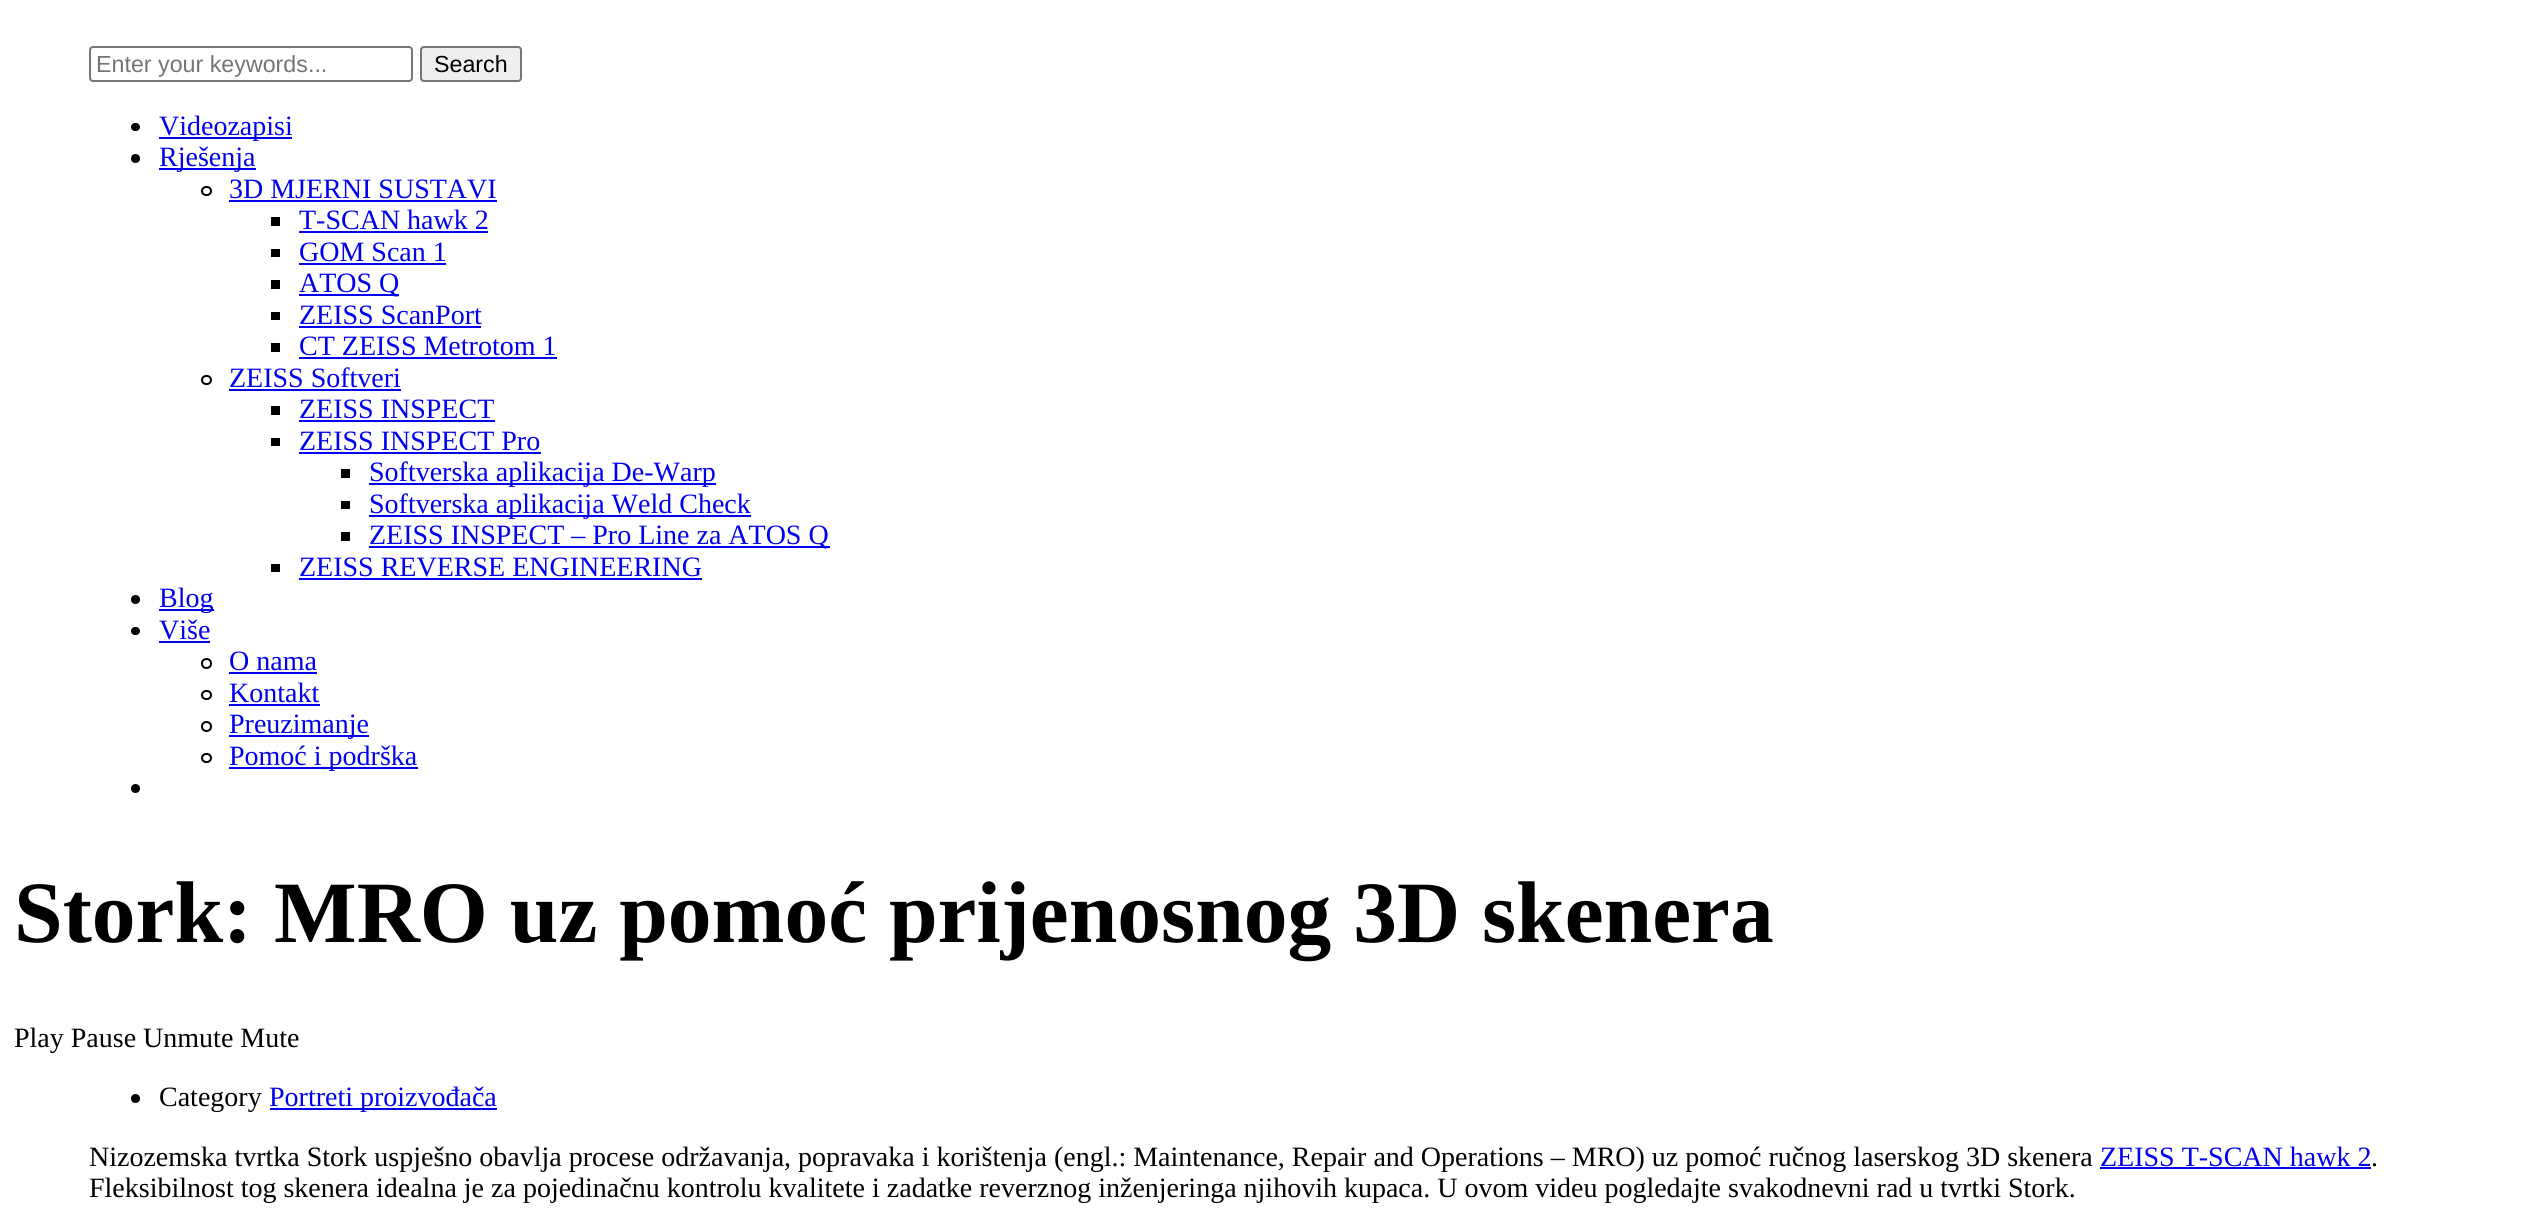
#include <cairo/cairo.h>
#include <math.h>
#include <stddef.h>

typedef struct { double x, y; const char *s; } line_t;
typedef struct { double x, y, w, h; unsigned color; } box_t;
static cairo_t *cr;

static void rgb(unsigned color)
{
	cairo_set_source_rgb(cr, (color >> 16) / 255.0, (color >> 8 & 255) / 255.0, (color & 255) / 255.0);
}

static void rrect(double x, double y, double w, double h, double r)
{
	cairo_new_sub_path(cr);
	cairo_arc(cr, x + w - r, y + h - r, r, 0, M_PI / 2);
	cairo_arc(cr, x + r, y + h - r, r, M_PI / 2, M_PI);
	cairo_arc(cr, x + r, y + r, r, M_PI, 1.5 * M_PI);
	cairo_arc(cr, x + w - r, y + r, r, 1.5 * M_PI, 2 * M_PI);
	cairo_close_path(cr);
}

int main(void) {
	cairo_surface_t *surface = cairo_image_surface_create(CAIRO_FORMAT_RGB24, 2535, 1226);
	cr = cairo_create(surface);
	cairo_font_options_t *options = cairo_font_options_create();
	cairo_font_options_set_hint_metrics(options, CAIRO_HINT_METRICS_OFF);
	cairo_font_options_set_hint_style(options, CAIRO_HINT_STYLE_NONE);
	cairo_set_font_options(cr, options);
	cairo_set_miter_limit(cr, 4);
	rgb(0xffffff);
	cairo_paint(cr);
	rrect(90, 47, 322, 34, 3);
	rgb(0x767676);
	cairo_stroke(cr);
	rgb(0xefefef);
	rrect(421, 47, 100, 34, 3);
	cairo_fill_preserve(cr);
	rgb(0x767676);
	cairo_stroke(cr);
	rgb(0x000000);
	rrect(131, 123, 9, 8, 4);
	cairo_fill(cr);
	rgb(0x0000ee);
	cairo_rectangle(cr, 159, 137, 133, 2);
	cairo_fill(cr);
	rgb(0x000000);
	cairo_arc(cr, 135.5, 158.5, 4.5, 0, 2 * M_PI);
	cairo_fill(cr);
	rgb(0x0000ee);
	cairo_rectangle(cr, 159, 168, 97, 2);
	cairo_fill(cr);
	rrect(202, 187, 9, 8, 4);
	rgb(0x000000);
	cairo_stroke(cr);
	{
		static const box_t items[] = {
			{229, 200, 268, 2, 0x0000ee},
			{271, 217, 9, 9, 0x000000},
			{299, 231, 189, 2, 0x0000ee},
			{271, 249, 9, 8, 0x000000},
			{299, 263, 147, 2, 0x0000ee},
			{271, 280, 9, 9, 0x000000},
			{299, 294, 100, 2, 0x0000ee},
			{271, 312, 9, 8, 0x000000},
			{299, 326, 182, 2, 0x0000ee},
			{271, 343, 9, 9, 0x000000},
			{299, 357, 258, 2, 0x0000ee},
		};
		for (size_t i = 0; i < sizeof items / sizeof *items; i++) {
			rgb(items[i].color);
			cairo_rectangle(cr, items[i].x, items[i].y, items[i].w, items[i].h);
			cairo_fill(cr);
		}
	}
	rrect(202, 376, 9, 8, 4);
	rgb(0x000000);
	cairo_stroke(cr);
	{
		static const box_t items[] = {
			{229, 389, 172, 2, 0x0000ee},
			{271, 406, 9, 9, 0x000000},
			{299, 420, 196, 2, 0x0000ee},
			{271, 438, 9, 8, 0x000000},
			{299, 452, 242, 2, 0x0000ee},
			{341, 469, 9, 9, 0x000000},
			{369, 483, 347, 2, 0x0000ee},
			{341, 501, 9, 8, 0x000000},
			{369, 515, 382, 2, 0x0000ee},
			{341, 532, 9, 9, 0x000000},
			{369, 546, 461, 2, 0x0000ee},
			{271, 564, 9, 8, 0x000000},
			{299, 578, 403, 2, 0x0000ee},
		};
		for (size_t i = 0; i < sizeof items / sizeof *items; i++) {
			rgb(items[i].color);
			cairo_rectangle(cr, items[i].x, items[i].y, items[i].w, items[i].h);
			cairo_fill(cr);
		}
	}
	rgb(0x000000);
	cairo_arc(cr, 135.5, 599.5, 4.5, 0, 2 * M_PI);
	cairo_fill(cr);
	rgb(0x0000ee);
	cairo_rectangle(cr, 159, 609, 55, 2);
	cairo_fill(cr);
	rgb(0x000000);
	rrect(131, 627, 9, 8, 4);
	cairo_fill(cr);
	rgb(0x0000ee);
	cairo_rectangle(cr, 159, 641, 51, 2);
	cairo_fill(cr);
	cairo_arc(cr, 206.5, 663.5, 4.5, 0, 2 * M_PI);
	rgb(0x000000);
	cairo_stroke(cr);
	rgb(0x0000ee);
	cairo_rectangle(cr, 229, 672, 88, 2);
	cairo_fill(cr);
	rrect(202, 691, 9, 8, 4);
	rgb(0x000000);
	cairo_stroke(cr);
	rgb(0x0000ee);
	cairo_rectangle(cr, 229, 704, 91, 2);
	cairo_fill(cr);
	cairo_arc(cr, 206.5, 726.5, 4.5, 0, 2 * M_PI);
	rgb(0x000000);
	cairo_stroke(cr);
	rgb(0x0000ee);
	cairo_rectangle(cr, 229, 735, 140, 2);
	cairo_fill(cr);
	rrect(202, 754, 9, 8, 4);
	rgb(0x000000);
	cairo_stroke(cr);
	rgb(0x0000ee);
	cairo_rectangle(cr, 229, 767, 189, 2);
	cairo_fill(cr);
	rgb(0x000000);
	cairo_arc(cr, 135.5, 788.5, 4.5, 0, 2 * M_PI);
	cairo_fill(cr);
	cairo_arc(cr, 135.5, 1098.5, 4.5, 0, 2 * M_PI);
	cairo_fill(cr);
	rgb(0x0000ee);
	cairo_rectangle(cr, 270, 1108, 227, 2);
	cairo_fill(cr);
	cairo_rectangle(cr, 2100, 1167, 271, 2);
	cairo_fill(cr);
	cairo_select_font_face(cr, "Liberation Sans", CAIRO_FONT_SLANT_NORMAL, CAIRO_FONT_WEIGHT_NORMAL);
	cairo_set_font_size(cr, 23.25);
	rgb(0x757575);
	cairo_move_to(cr, 96, 72);
	cairo_show_text(cr, "Enter your keywords...");
	rgb(0x000000);
	cairo_move_to(cr, 434, 72);
	cairo_show_text(cr, "Search");
	cairo_select_font_face(cr, "Liberation Serif", CAIRO_FONT_SLANT_NORMAL, CAIRO_FONT_WEIGHT_NORMAL);
	cairo_set_font_size(cr, 28);
	rgb(0x0000ee);
	{
		static const line_t items[] = {
			{159, 135, "Videozapisi"},
			{159, 166, "Rješenja"},
			{229, 198, "3D MJERNI SUSTAVI"},
			{299, 229, "T-SCAN hawk 2"},
			{299, 261, "GOM Scan 1"},
			{299, 292, "ATOS Q"},
			{299, 324, "ZEISS ScanPort"},
			{299, 355, "CT ZEISS Metrotom 1"},
			{229, 387, "ZEISS Softveri"},
			{299, 418, "ZEISS INSPECT"},
			{299, 450, "ZEISS INSPECT Pro"},
			{369, 481, "Softverska aplikacija De-Warp"},
			{369, 513, "Softverska aplikacija Weld Check"},
			{369, 544, "ZEISS INSPECT – Pro Line za ATOS Q"},
			{299, 576, "ZEISS REVERSE ENGINEERING"},
			{159, 607, "Blog"},
			{159, 639, "Više"},
			{229, 670, "O nama"},
			{229, 702, "Kontakt"},
			{229, 733, "Preuzimanje"},
			{229, 765, "Pomoć i podrška"},
		};
		for (size_t i = 0; i < sizeof items / sizeof *items; i++) {
			cairo_move_to(cr, items[i].x, items[i].y);
			cairo_show_text(cr, items[i].s);
		}
	}
	cairo_select_font_face(cr, "Liberation Serif", CAIRO_FONT_SLANT_NORMAL, CAIRO_FONT_WEIGHT_BOLD);
	cairo_set_font_size(cr, 87.5);
	rgb(0x000000);
	cairo_move_to(cr, 14, 942);
	cairo_show_text(cr, "Stork: MRO uz pomoć prijenosnog 3D skenera");
	cairo_select_font_face(cr, "Liberation Serif", CAIRO_FONT_SLANT_NORMAL, CAIRO_FONT_WEIGHT_NORMAL);
	cairo_set_font_size(cr, 28);
	cairo_move_to(cr, 14, 1047);
	cairo_show_text(cr, "Play Pause Unmute Mute");
	cairo_move_to(cr, 159, 1106);
	cairo_show_text(cr, "Category");
	rgb(0x0000ee);
	cairo_move_to(cr, 269, 1106);
	cairo_show_text(cr, "Portreti proizvođača");
	rgb(0x000000);
	cairo_move_to(cr, 89, 1166);
	cairo_show_text(cr, "Nizozemska tvrtka Stork uspješno obavlja procese održavanja, popravaka i korištenja (engl.: Maintenance, Repair and Operations – MRO) uz pomoć ručnog laserskog 3D skenera");
	rgb(0x0000ee);
	cairo_move_to(cr, 2100, 1166);
	cairo_show_text(cr, "ZEISS T-SCAN hawk 2");
	rgb(0x000000);
	cairo_move_to(cr, 2371, 1166);
	cairo_show_text(cr, ".");
	cairo_move_to(cr, 89, 1197);
	cairo_show_text(cr, "Fleksibilnost tog skenera idealna je za pojedinačnu kontrolu kvalitete i zadatke reverznog inženjeringa njihovih kupaca. U ovom videu pogledajte svakodnevni rad u tvrtki Stork.");
	cairo_surface_write_to_png(surface, "page.png");
	cairo_font_options_destroy(options);
	cairo_destroy(cr);
	cairo_surface_destroy(surface);
	return 0;
}
